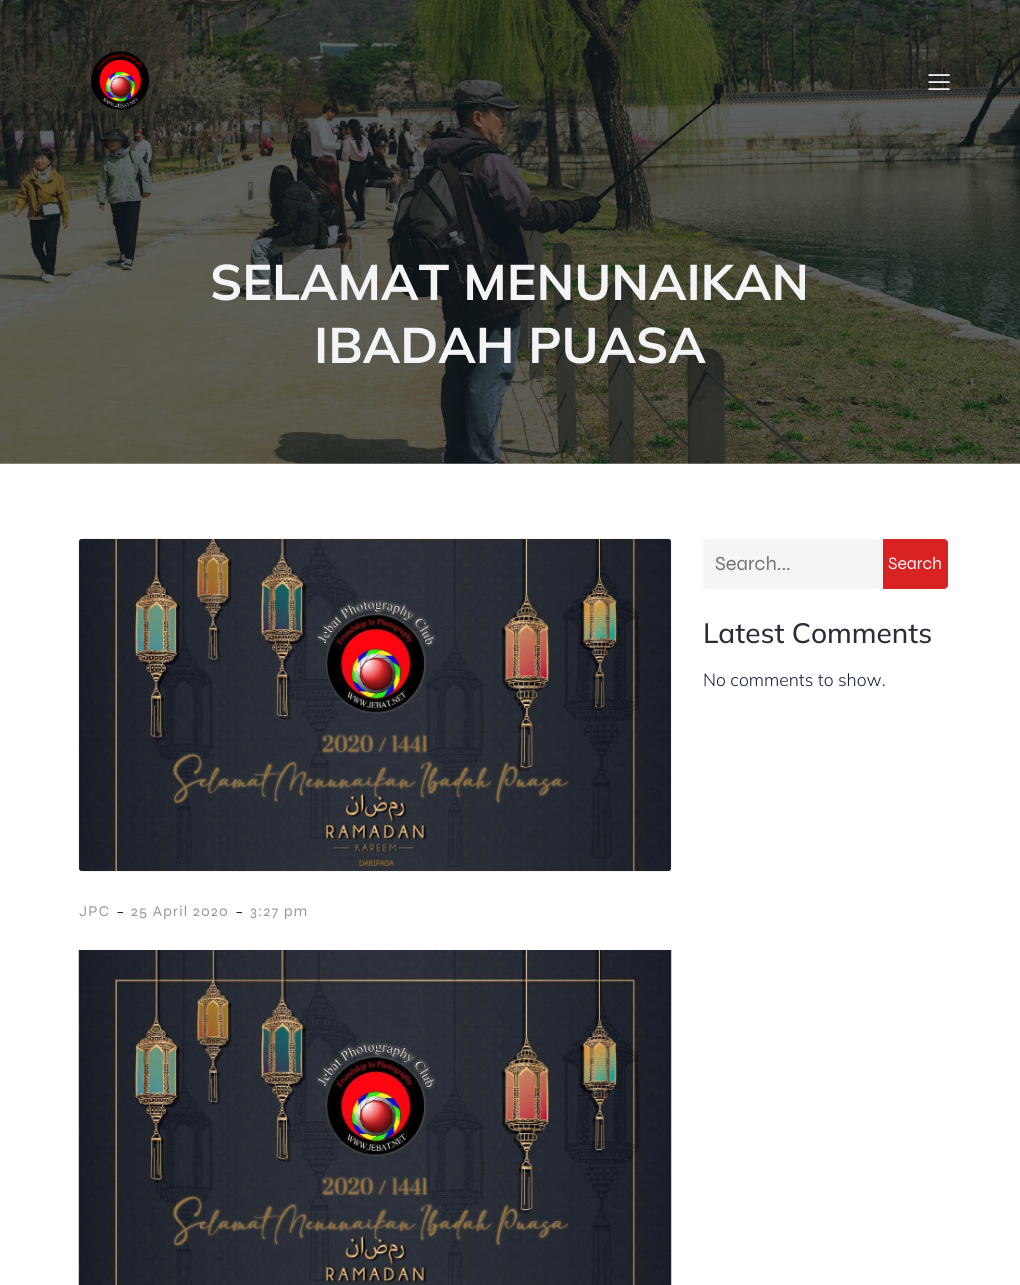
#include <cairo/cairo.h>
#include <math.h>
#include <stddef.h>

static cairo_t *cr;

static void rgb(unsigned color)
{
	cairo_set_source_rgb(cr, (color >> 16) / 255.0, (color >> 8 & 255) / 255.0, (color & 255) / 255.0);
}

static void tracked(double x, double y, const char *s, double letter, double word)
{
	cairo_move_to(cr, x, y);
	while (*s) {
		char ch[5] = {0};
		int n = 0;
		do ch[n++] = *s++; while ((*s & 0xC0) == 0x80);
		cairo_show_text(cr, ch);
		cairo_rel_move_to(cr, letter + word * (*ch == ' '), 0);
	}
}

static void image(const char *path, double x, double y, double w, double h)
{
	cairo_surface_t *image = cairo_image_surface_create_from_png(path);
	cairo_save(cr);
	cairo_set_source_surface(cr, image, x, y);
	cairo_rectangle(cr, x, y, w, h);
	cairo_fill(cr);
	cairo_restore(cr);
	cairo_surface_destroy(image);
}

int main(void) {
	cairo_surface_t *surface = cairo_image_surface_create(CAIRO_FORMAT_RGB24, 1020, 1285);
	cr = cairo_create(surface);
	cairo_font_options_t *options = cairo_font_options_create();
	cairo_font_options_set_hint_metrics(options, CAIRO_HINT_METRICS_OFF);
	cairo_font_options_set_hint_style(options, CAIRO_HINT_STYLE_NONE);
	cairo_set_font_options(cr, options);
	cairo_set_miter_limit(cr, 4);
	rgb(0xffffff);
	cairo_paint(cr);
	image("img/3.png", 0, 0, 1020, 464);
	image("img/1.png", 90, 51, 60, 60);
	image("img/2.png", 928, 74, 22, 16);
	rgb(0xf4f5f5);
	cairo_new_path(cr);
	cairo_move_to(cr, 707, 539);
	cairo_line_to(cr, 883, 539);
	cairo_line_to(cr, 883, 589);
	cairo_line_to(cr, 707, 589);
	cairo_curve_to(cr, 705, 589, 703, 587, 703, 585);
	cairo_line_to(cr, 703, 543);
	cairo_curve_to(cr, 703, 541, 705, 539, 707, 539);
	cairo_close_path(cr);
	cairo_fill(cr);
	rgb(0xd92222);
	cairo_new_path(cr);
	cairo_move_to(cr, 883, 539);
	cairo_line_to(cr, 944, 539);
	cairo_curve_to(cr, 946, 539, 948, 541, 948, 543);
	cairo_line_to(cr, 948, 585);
	cairo_curve_to(cr, 948, 587, 946, 589, 944, 589);
	cairo_line_to(cr, 883, 589);
	cairo_close_path(cr);
	cairo_fill(cr);
	image("img/4.png", 78, 538, 594, 334);
	image("img/5.png", 78, 950, 594, 335);
	cairo_select_font_face(cr, "Mulish", CAIRO_FONT_SLANT_NORMAL, CAIRO_FONT_WEIGHT_BOLD);
	cairo_set_font_size(cr, 50);
	rgb(0xf4f4f7);
	cairo_move_to(cr, 210, 300);
	cairo_show_text(cr, "SELAMAT MENUNAIKAN");
	cairo_move_to(cr, 314, 363);
	cairo_show_text(cr, "IBADAH PUASA");
	cairo_select_font_face(cr, "Syne", CAIRO_FONT_SLANT_NORMAL, CAIRO_FONT_WEIGHT_NORMAL);
	cairo_set_font_size(cr, 20);
	rgb(0x757575);
	cairo_move_to(cr, 715, 570);
	cairo_show_text(cr, "Search...");
	cairo_set_font_size(cr, 17.5);
	rgb(0xf4f4f7);
	cairo_move_to(cr, 888, 569);
	cairo_show_text(cr, "Search");
	cairo_select_font_face(cr, "Mulish Medium", CAIRO_FONT_SLANT_NORMAL, CAIRO_FONT_WEIGHT_NORMAL);
	cairo_set_font_size(cr, 28);
	rgb(0x292e38);
	cairo_move_to(cr, 703, 643);
	cairo_show_text(cr, "Latest Comments");
	cairo_select_font_face(cr, "Mulish Light", CAIRO_FONT_SLANT_NORMAL, CAIRO_FONT_WEIGHT_NORMAL);
	cairo_set_font_size(cr, 17.5);
	rgb(0x162137);
	cairo_move_to(cr, 703, 686);
	cairo_show_text(cr, "No comments to show.");
	cairo_select_font_face(cr, "Syne", CAIRO_FONT_SLANT_NORMAL, CAIRO_FONT_WEIGHT_NORMAL);
	cairo_set_font_size(cr, 15);
	rgb(0x94979c);
	tracked(79, 916, "JPC", 1.25, 0);
	cairo_select_font_face(cr, "Mulish Light", CAIRO_FONT_SLANT_NORMAL, CAIRO_FONT_WEIGHT_NORMAL);
	cairo_set_font_size(cr, 20);
	rgb(0x162137);
	cairo_move_to(cr, 116, 918);
	cairo_show_text(cr, "-");
	cairo_select_font_face(cr, "Syne", CAIRO_FONT_SLANT_NORMAL, CAIRO_FONT_WEIGHT_NORMAL);
	cairo_set_font_size(cr, 15);
	rgb(0x94979c);
	tracked(131, 916, "25 April 2020", 1.25, 0);
	cairo_select_font_face(cr, "Mulish Light", CAIRO_FONT_SLANT_NORMAL, CAIRO_FONT_WEIGHT_NORMAL);
	cairo_set_font_size(cr, 20);
	rgb(0x162137);
	cairo_move_to(cr, 235, 918);
	cairo_show_text(cr, "-");
	cairo_select_font_face(cr, "Syne", CAIRO_FONT_SLANT_NORMAL, CAIRO_FONT_WEIGHT_NORMAL);
	cairo_set_font_size(cr, 15);
	rgb(0x94979c);
	tracked(250, 916, "3:27 pm", 1.25, 0);
	cairo_surface_write_to_png(surface, "page.png");
	cairo_font_options_destroy(options);
	cairo_destroy(cr);
	cairo_surface_destroy(surface);
	return 0;
}
